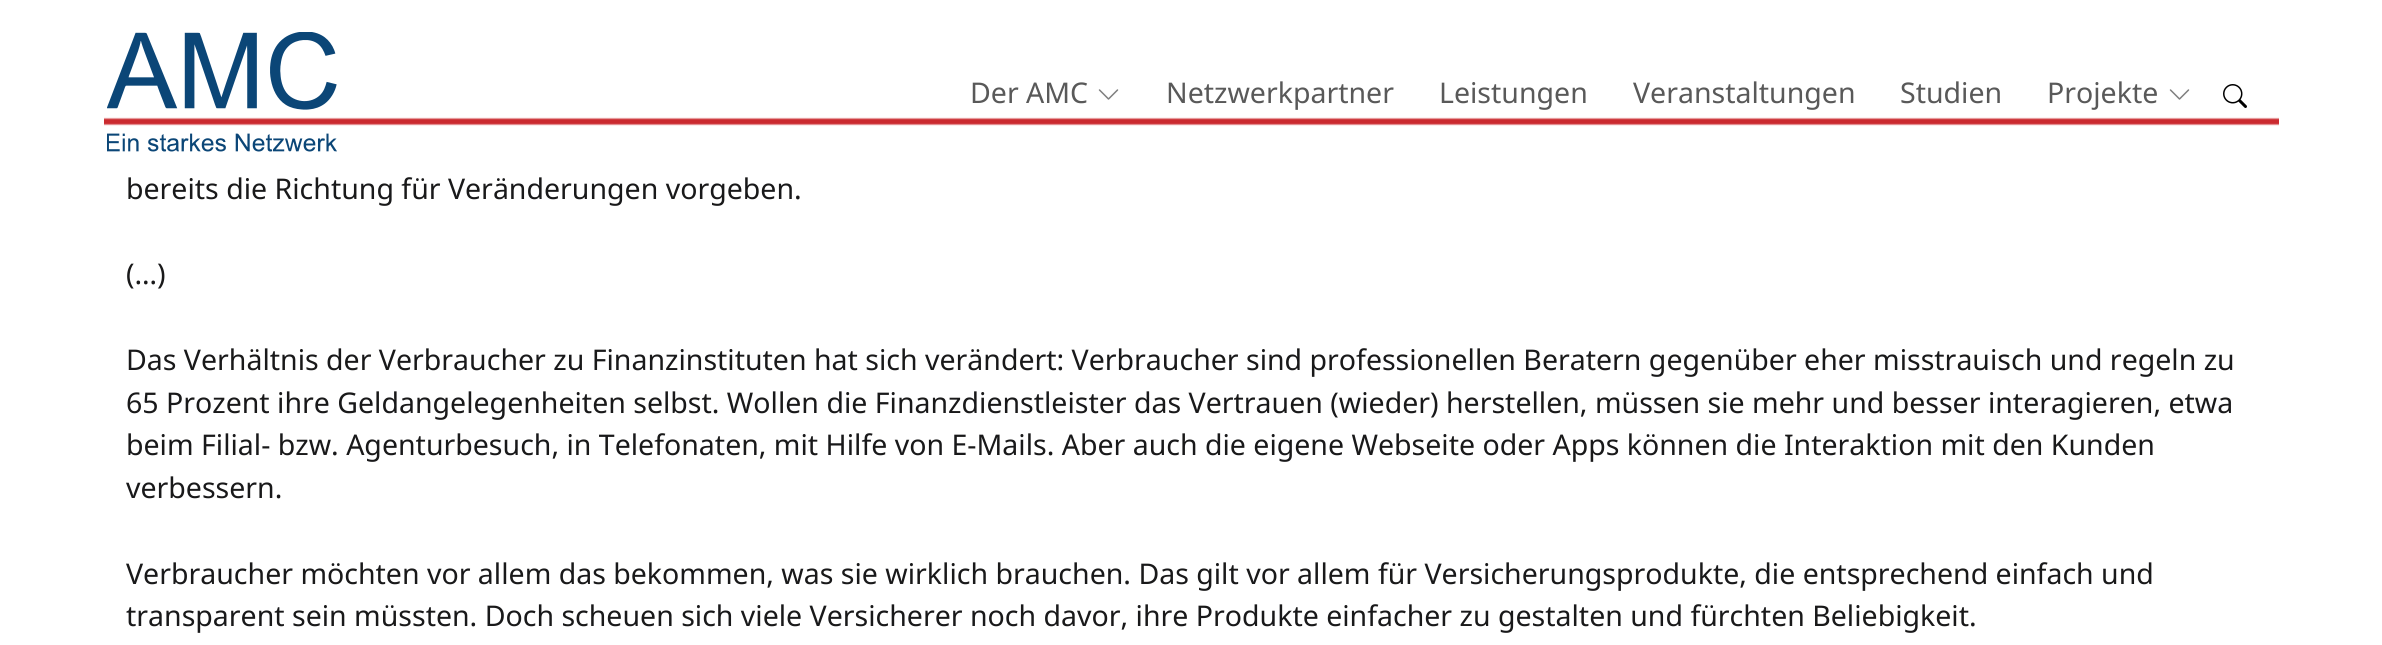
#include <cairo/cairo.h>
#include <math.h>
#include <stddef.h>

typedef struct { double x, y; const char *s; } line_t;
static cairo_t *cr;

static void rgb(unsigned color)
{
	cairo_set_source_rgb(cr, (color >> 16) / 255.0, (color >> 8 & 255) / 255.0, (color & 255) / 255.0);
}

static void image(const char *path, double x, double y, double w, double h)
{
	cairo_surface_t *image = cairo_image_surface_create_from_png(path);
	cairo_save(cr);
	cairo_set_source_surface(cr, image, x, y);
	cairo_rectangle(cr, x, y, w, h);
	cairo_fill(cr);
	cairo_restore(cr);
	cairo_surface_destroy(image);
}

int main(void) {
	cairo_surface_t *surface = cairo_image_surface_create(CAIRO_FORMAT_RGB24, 2382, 645);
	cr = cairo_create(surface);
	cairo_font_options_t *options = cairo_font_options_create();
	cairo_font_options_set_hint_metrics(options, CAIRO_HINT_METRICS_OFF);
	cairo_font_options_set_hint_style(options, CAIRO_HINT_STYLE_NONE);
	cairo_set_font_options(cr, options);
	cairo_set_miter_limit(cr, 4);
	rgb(0xffffff);
	cairo_paint(cr);
	image("img/1.png", 104, 117, 2175, 9);
	image("img/2.png", 107, 32, 230, 120);
	image("img/3.png", 1098, 89, 21, 11);
	image("img/3.png", 2169, 89, 21, 11);
	image("img/4.png", 2223, 84, 24, 24);
	cairo_select_font_face(cr, "Noto Sans", CAIRO_FONT_SLANT_NORMAL, CAIRO_FONT_WEIGHT_NORMAL);
	cairo_set_font_size(cr, 28.5);
	rgb(0x595959);
	{
		static const line_t items[] = {
			{970, 103, "Der AMC"},
			{1166, 103, "Netzwerkpartner"},
			{1439, 103, "Leistungen"},
			{1633, 103, "Veranstaltungen"},
			{1900, 103, "Studien"},
			{2047, 103, "Projekte"},
		};
		for (size_t i = 0; i < sizeof items / sizeof *items; i++) {
			cairo_move_to(cr, items[i].x, items[i].y);
			cairo_show_text(cr, items[i].s);
		}
	}
	rgb(0x19191a);
	{
		static const line_t items[] = {
			{126, 199, "bereits die Richtung für Veränderungen vorgeben."},
			{126, 284, "(…)"},
			{126, 370, "Das Verhältnis der Verbraucher zu Finanzinstituten hat sich verändert: Verbraucher sind professionellen Beratern gegenüber eher misstrauisch und regeln zu"},
			{126, 413, "65 Prozent ihre Geldangelegenheiten selbst. Wollen die Finanzdienstleister das Vertrauen (wieder) herstellen, müssen sie mehr und besser interagieren, etwa"},
			{126, 455, "beim Filial- bzw. Agenturbesuch, in Telefonaten, mit Hilfe von E-Mails. Aber auch die eigene Webseite oder Apps können die Interaktion mit den Kunden"},
			{126, 498, "verbessern."},
			{126, 584, "Verbraucher möchten vor allem das bekommen, was sie wirklich brauchen. Das gilt vor allem für Versicherungsprodukte, die entsprechend einfach und"},
			{126, 626, "transparent sein müssten. Doch scheuen sich viele Versicherer noch davor, ihre Produkte einfacher zu gestalten und fürchten Beliebigkeit."},
		};
		for (size_t i = 0; i < sizeof items / sizeof *items; i++) {
			cairo_move_to(cr, items[i].x, items[i].y);
			cairo_show_text(cr, items[i].s);
		}
	}
	cairo_surface_write_to_png(surface, "page.png");
	cairo_font_options_destroy(options);
	cairo_destroy(cr);
	cairo_surface_destroy(surface);
	return 0;
}
